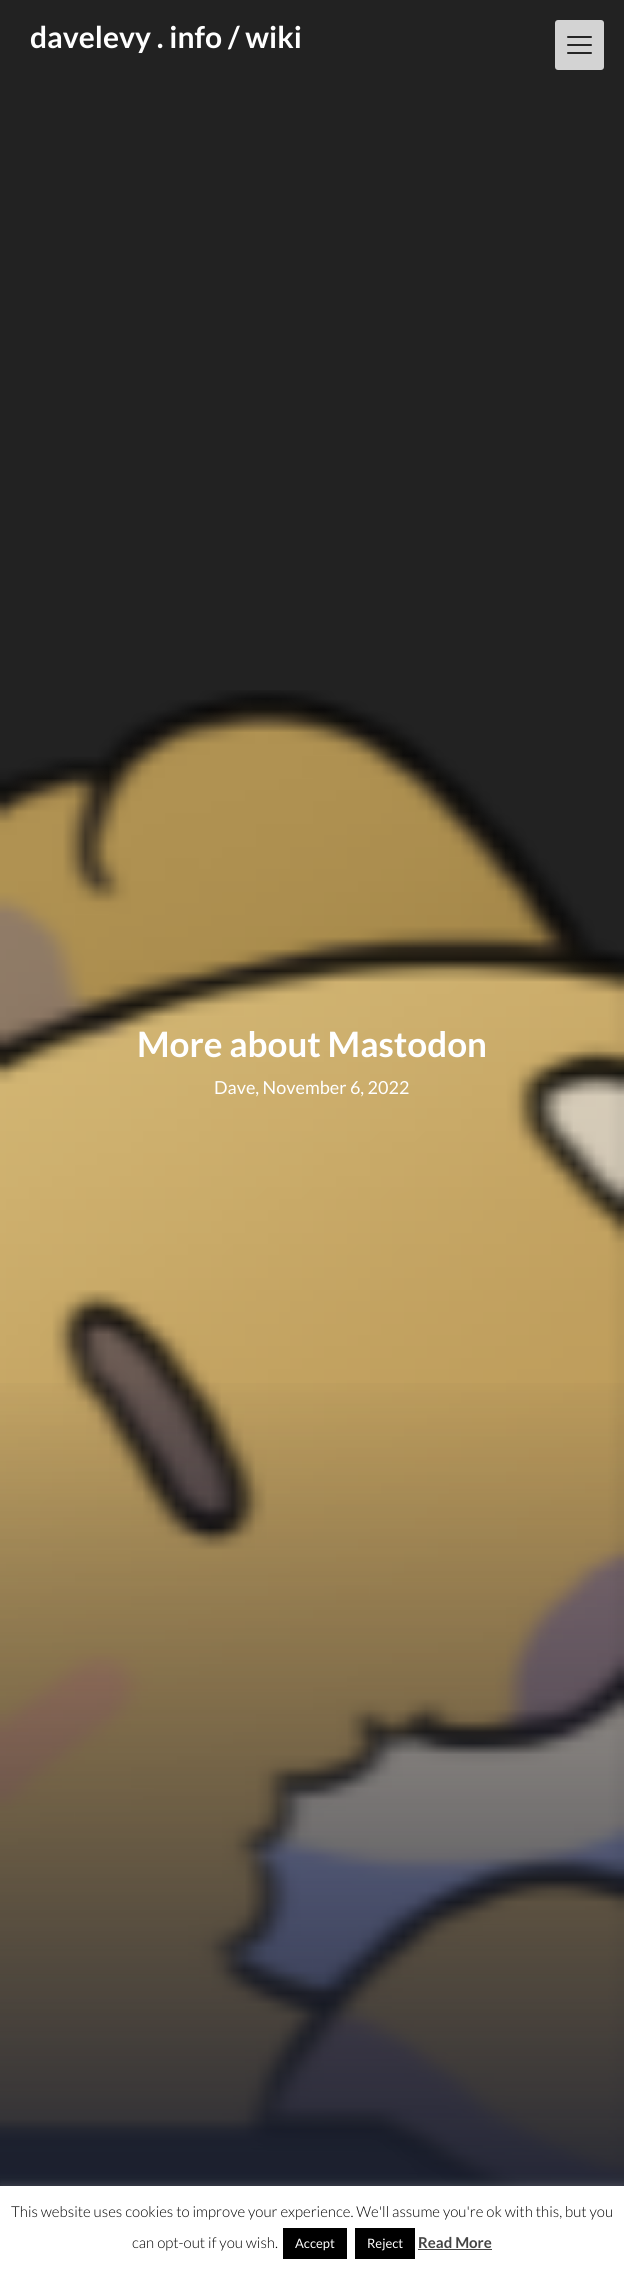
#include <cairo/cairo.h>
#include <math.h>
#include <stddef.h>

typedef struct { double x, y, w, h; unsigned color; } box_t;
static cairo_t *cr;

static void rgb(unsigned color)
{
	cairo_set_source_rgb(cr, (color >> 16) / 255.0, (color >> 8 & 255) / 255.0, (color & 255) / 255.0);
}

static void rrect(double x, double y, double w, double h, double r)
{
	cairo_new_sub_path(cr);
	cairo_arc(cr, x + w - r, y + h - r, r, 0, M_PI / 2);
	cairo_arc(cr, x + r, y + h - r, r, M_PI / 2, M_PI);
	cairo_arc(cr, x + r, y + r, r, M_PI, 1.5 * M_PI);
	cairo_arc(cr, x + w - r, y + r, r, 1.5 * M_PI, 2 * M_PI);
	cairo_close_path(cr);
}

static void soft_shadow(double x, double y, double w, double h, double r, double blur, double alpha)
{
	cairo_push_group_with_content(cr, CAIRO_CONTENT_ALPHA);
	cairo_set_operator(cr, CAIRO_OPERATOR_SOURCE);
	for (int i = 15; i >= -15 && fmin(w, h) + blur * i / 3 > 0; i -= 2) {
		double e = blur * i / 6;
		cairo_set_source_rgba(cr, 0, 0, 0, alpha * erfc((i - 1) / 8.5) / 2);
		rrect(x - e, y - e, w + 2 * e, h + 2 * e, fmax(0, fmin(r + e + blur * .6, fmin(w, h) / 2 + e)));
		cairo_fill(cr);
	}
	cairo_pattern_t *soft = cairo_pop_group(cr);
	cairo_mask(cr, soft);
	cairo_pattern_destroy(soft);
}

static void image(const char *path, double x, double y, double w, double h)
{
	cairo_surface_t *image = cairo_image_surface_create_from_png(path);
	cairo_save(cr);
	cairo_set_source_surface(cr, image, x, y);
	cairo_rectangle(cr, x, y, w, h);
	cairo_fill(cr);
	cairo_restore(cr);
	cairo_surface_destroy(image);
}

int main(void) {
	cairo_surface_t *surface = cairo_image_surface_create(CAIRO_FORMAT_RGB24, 624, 2271);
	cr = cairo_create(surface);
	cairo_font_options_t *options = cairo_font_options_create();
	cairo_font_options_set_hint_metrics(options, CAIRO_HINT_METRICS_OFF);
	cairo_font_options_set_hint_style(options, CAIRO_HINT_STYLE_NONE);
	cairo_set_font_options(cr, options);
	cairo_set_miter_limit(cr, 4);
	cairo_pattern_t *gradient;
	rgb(0x222222);
	cairo_paint(cr);
	rgb(0xd3d3d3);
	rrect(555, 20, 49, 50, 3);
	cairo_fill(cr);
	rgb(0x252525);
	rrect(567, 44, 25, 2, 1);
	cairo_fill(cr);
	rrect(567, 36, 25, 2, 1);
	cairo_fill(cr);
	rrect(567, 52, 25, 2, 1);
	cairo_fill(cr);
	image("img/1.png", 0, 690, 624, 1496);
	gradient = cairo_pattern_create_linear(312, 1363, 312, 2271);
	cairo_pattern_add_color_stop_rgba(gradient, 0, 0.106, 0.125, 0.188, 0);
	cairo_pattern_add_color_stop_rgba(gradient, 1, 0.106, 0.125, 0.188, 1);
	cairo_set_source(cr, gradient);
	cairo_pattern_destroy(gradient);
	cairo_rectangle(cr, 0, 1383, 624, 803);
	cairo_fill(cr);
	rgb(0xacabab);
	soft_shadow(0, 2185, 624, 85, 0, 5, 0.3);
	{
		static const box_t items[] = {
			{0, 2186, 624, 85, 0xffffff},
			{283, 2228, 64, 31, 0x000000},
			{355, 2228, 60, 31, 0x000000},
			{418, 2249, 74, 1, 0x444444},
		};
		for (size_t i = 0; i < sizeof items / sizeof *items; i++) {
			rgb(items[i].color);
			cairo_rectangle(cr, items[i].x, items[i].y, items[i].w, items[i].h);
			cairo_fill(cr);
		}
	}
	cairo_select_font_face(cr, "Lato", CAIRO_FONT_SLANT_NORMAL, CAIRO_FONT_WEIGHT_BOLD);
	cairo_set_font_size(cr, 30);
	rgb(0xffffff);
	cairo_move_to(cr, 30, 48);
	cairo_show_text(cr, "davelevy . info / wiki");
	cairo_set_font_size(cr, 35);
	cairo_move_to(cr, 137, 1057);
	cairo_show_text(cr, "More about Mastodon");
	cairo_select_font_face(cr, "Lato", CAIRO_FONT_SLANT_NORMAL, CAIRO_FONT_WEIGHT_NORMAL);
	cairo_set_font_size(cr, 18);
	cairo_move_to(cr, 214, 1094);
	cairo_show_text(cr, "Dave, November 6, 2022");
	cairo_select_font_face(cr, "Lato Light", CAIRO_FONT_SLANT_NORMAL, CAIRO_FONT_WEIGHT_NORMAL);
	cairo_set_font_size(cr, 15);
	rgb(0x000000);
	cairo_move_to(cr, 11, 2217);
	cairo_show_text(cr, "This website uses cookies to improve your experience. We'll assume you're ok with this, but you");
	cairo_move_to(cr, 132, 2248);
	cairo_show_text(cr, "can opt-out if you wish.");
	cairo_select_font_face(cr, "Lato", CAIRO_FONT_SLANT_NORMAL, CAIRO_FONT_WEIGHT_NORMAL);
	cairo_set_font_size(cr, 13);
	rgb(0xffffff);
	cairo_move_to(cr, 295, 2248);
	cairo_show_text(cr, "Accept");
	cairo_move_to(cr, 367, 2248);
	cairo_show_text(cr, "Reject");
	cairo_select_font_face(cr, "Lato", CAIRO_FONT_SLANT_NORMAL, CAIRO_FONT_WEIGHT_BOLD);
	cairo_set_font_size(cr, 15);
	rgb(0x444444);
	cairo_move_to(cr, 418, 2248);
	cairo_show_text(cr, "Read More");
	cairo_surface_write_to_png(surface, "page.png");
	cairo_font_options_destroy(options);
	cairo_destroy(cr);
	cairo_surface_destroy(surface);
	return 0;
}
